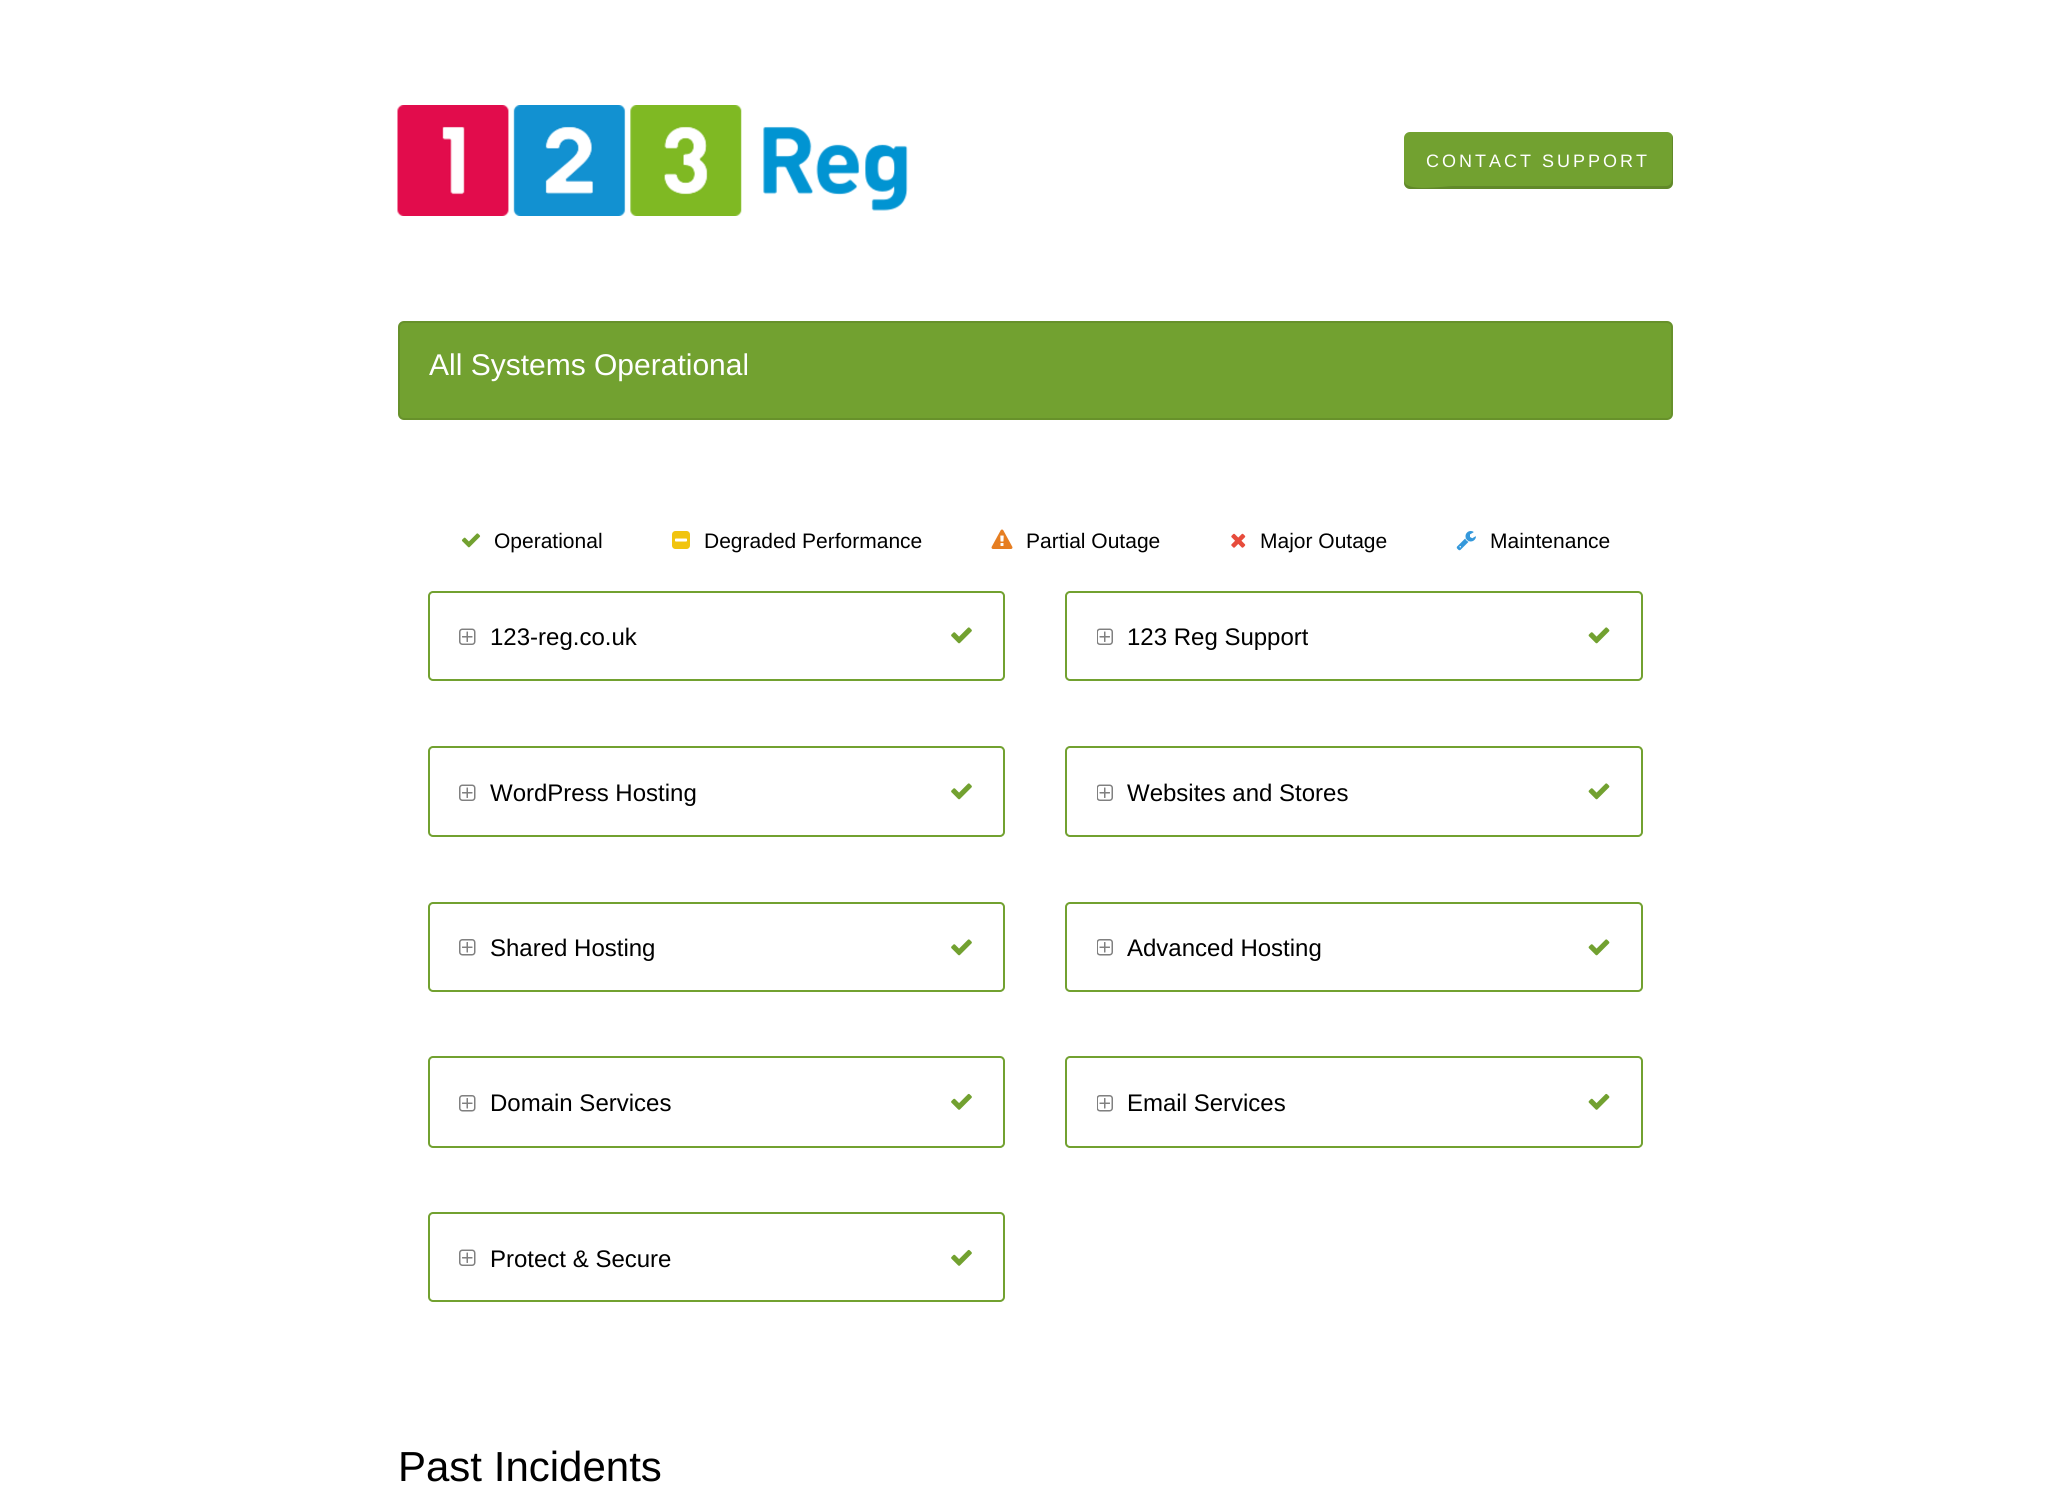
#include <cairo/cairo.h>
#include <math.h>
#include <stddef.h>

typedef struct { double x, y; const char *s; } line_t;
static cairo_t *cr;

static void rgb(unsigned color)
{
	cairo_set_source_rgb(cr, (color >> 16) / 255.0, (color >> 8 & 255) / 255.0, (color & 255) / 255.0);
}

static void tracked(double x, double y, const char *s, double letter, double word)
{
	cairo_move_to(cr, x, y);
	while (*s) {
		char ch[5] = {0};
		int n = 0;
		do ch[n++] = *s++; while ((*s & 0xC0) == 0x80);
		cairo_show_text(cr, ch);
		cairo_rel_move_to(cr, letter + word * (*ch == ' '), 0);
	}
}

static void rrect(double x, double y, double w, double h, double r)
{
	cairo_new_sub_path(cr);
	cairo_arc(cr, x + w - r, y + h - r, r, 0, M_PI / 2);
	cairo_arc(cr, x + r, y + h - r, r, M_PI / 2, M_PI);
	cairo_arc(cr, x + r, y + r, r, M_PI, 1.5 * M_PI);
	cairo_arc(cr, x + w - r, y + r, r, 1.5 * M_PI, 2 * M_PI);
	cairo_close_path(cr);
}

static void image(const char *path, double x, double y, double w, double h)
{
	cairo_surface_t *image = cairo_image_surface_create_from_png(path);
	cairo_save(cr);
	cairo_set_source_surface(cr, image, x, y);
	cairo_rectangle(cr, x, y, w, h);
	cairo_fill(cr);
	cairo_restore(cr);
	cairo_surface_destroy(image);
}

int main(void) {
	cairo_surface_t *surface = cairo_image_surface_create(CAIRO_FORMAT_RGB24, 2069, 1506);
	cr = cairo_create(surface);
	cairo_font_options_t *options = cairo_font_options_create();
	cairo_font_options_set_hint_metrics(options, CAIRO_HINT_METRICS_OFF);
	cairo_font_options_set_hint_style(options, CAIRO_HINT_STYLE_NONE);
	cairo_set_font_options(cr, options);
	cairo_set_miter_limit(cr, 4);
	rgb(0xffffff);
	cairo_paint(cr);
	image("img/1.png", 397, 105, 511, 111);
	rgb(0x72a130);
	rrect(1404, 132, 269, 57, 6);
	cairo_fill(cr);
	cairo_set_source_rgba(cr, 0, 0, 0, 0.15);
	cairo_new_path(cr);
	cairo_move_to(cr, 1404, 180);
	cairo_line_to(cr, 1404, 183);
	cairo_curve_to(cr, 1404, 186, 1407, 189, 1410, 189);
	cairo_line_to(cr, 1667, 189);
	cairo_curve_to(cr, 1670, 189, 1673, 186, 1673, 183);
	cairo_line_to(cr, 1673, 138);
	cairo_curve_to(cr, 1673, 137, 1673, 136, 1672, 135);
	cairo_line_to(cr, 1672, 172);
	cairo_curve_to(cr, 1672, 177, 1673, 186, 1666, 186);
	cairo_line_to(cr, 1453, 186);
	cairo_curve_to(cr, 1444, 186, 1404, 193, 1404, 180);
	cairo_close_path(cr);
	cairo_fill(cr);
	rgb(0x72a130);
	rrect(398, 321, 1275, 99, 6);
	cairo_fill(cr);
	rrect(399, 322, 1273, 97, 5);
	cairo_set_source_rgba(cr, 0, 0, 0, 0.1);
	cairo_stroke(cr);
	image("img/2.png", 461, 533, 20, 15);
	image("img/3.png", 672, 531, 18, 18);
	image("img/4.png", 991, 529, 22, 20);
	image("img/5.png", 1231, 533, 15, 15);
	image("img/6.png", 1456, 531, 20, 20);
	rrect(429, 592, 575, 88, 4);
	rgb(0x72a130);
	cairo_stroke(cr);
	image("img/7.png", 459, 628, 17, 17);
	image("img/8.png", 951, 627, 21, 17);
	rrect(1066, 592, 576, 88, 4);
	cairo_stroke(cr);
	image("img/9.png", 1097, 628, 16, 17);
	image("img/10.png", 1588, 627, 22, 17);
	rrect(429, 747, 575, 89, 4);
	cairo_stroke(cr);
	image("img/7.png", 459, 784, 17, 17);
	image("img/8.png", 951, 783, 21, 17);
	rrect(1066, 747, 576, 89, 4);
	cairo_stroke(cr);
	image("img/9.png", 1097, 784, 16, 17);
	image("img/10.png", 1588, 783, 22, 17);
	rrect(429, 903, 575, 88, 4);
	cairo_stroke(cr);
	image("img/11.png", 459, 939, 17, 17);
	image("img/8.png", 951, 939, 21, 17);
	rrect(1066, 903, 576, 88, 4);
	cairo_stroke(cr);
	image("img/12.png", 1097, 939, 16, 17);
	image("img/10.png", 1588, 939, 22, 17);
	rrect(429, 1057, 575, 90, 4);
	cairo_stroke(cr);
	image("img/11.png", 459, 1095, 17, 17);
	image("img/13.png", 951, 1093, 21, 17);
	rrect(1066, 1057, 576, 90, 4);
	cairo_stroke(cr);
	image("img/12.png", 1097, 1095, 16, 17);
	image("img/14.png", 1588, 1093, 22, 17);
	rrect(429, 1213, 575, 88, 4);
	cairo_stroke(cr);
	image("img/7.png", 459, 1249, 17, 17);
	image("img/13.png", 951, 1249, 21, 17);
	cairo_select_font_face(cr, "Liberation Sans", CAIRO_FONT_SLANT_NORMAL, CAIRO_FONT_WEIGHT_NORMAL);
	cairo_set_font_size(cr, 18);
	rgb(0xffffff);
	tracked(1426, 167, "CONTACT SUPPORT", 3, 0);
	cairo_set_font_size(cr, 30);
	cairo_move_to(cr, 429, 375);
	cairo_show_text(cr, "All Systems Operational");
	cairo_set_font_size(cr, 21);
	rgb(0x000000);
	{
		static const line_t items[] = {
			{494, 548, "Operational"},
			{704, 548, "Degraded Performance"},
			{1026, 548, "Partial Outage"},
			{1260, 548, "Major Outage"},
			{1490, 548, "Maintenance"},
		};
		for (size_t i = 0; i < sizeof items / sizeof *items; i++) {
			cairo_move_to(cr, items[i].x, items[i].y);
			cairo_show_text(cr, items[i].s);
		}
	}
	cairo_set_font_size(cr, 24);
	cairo_move_to(cr, 490, 645);
	cairo_show_text(cr, "123-reg.co.uk");
	cairo_save(cr);
	cairo_rectangle(cr, 1097, 620, 211, 36);
	cairo_clip(cr);
	cairo_move_to(cr, 1127, 645);
	cairo_show_text(cr, "123 Reg Support");
	cairo_restore(cr);
	{
		static const line_t items[] = {
			{490, 801, "WordPress Hosting"},
			{1127, 801, "Websites and Stores"},
			{490, 956, "Shared Hosting"},
			{1127, 956, "Advanced Hosting"},
			{490, 1111, "Domain Services"},
			{1127, 1111, "Email Services"},
			{490, 1267, "Protect & Secure"},
		};
		for (size_t i = 0; i < sizeof items / sizeof *items; i++) {
			cairo_move_to(cr, items[i].x, items[i].y);
			cairo_show_text(cr, items[i].s);
		}
	}
	cairo_set_font_size(cr, 42);
	cairo_move_to(cr, 398, 1481);
	cairo_show_text(cr, "Past Incidents");
	cairo_surface_write_to_png(surface, "page.png");
	cairo_font_options_destroy(options);
	cairo_destroy(cr);
	cairo_surface_destroy(surface);
	return 0;
}
